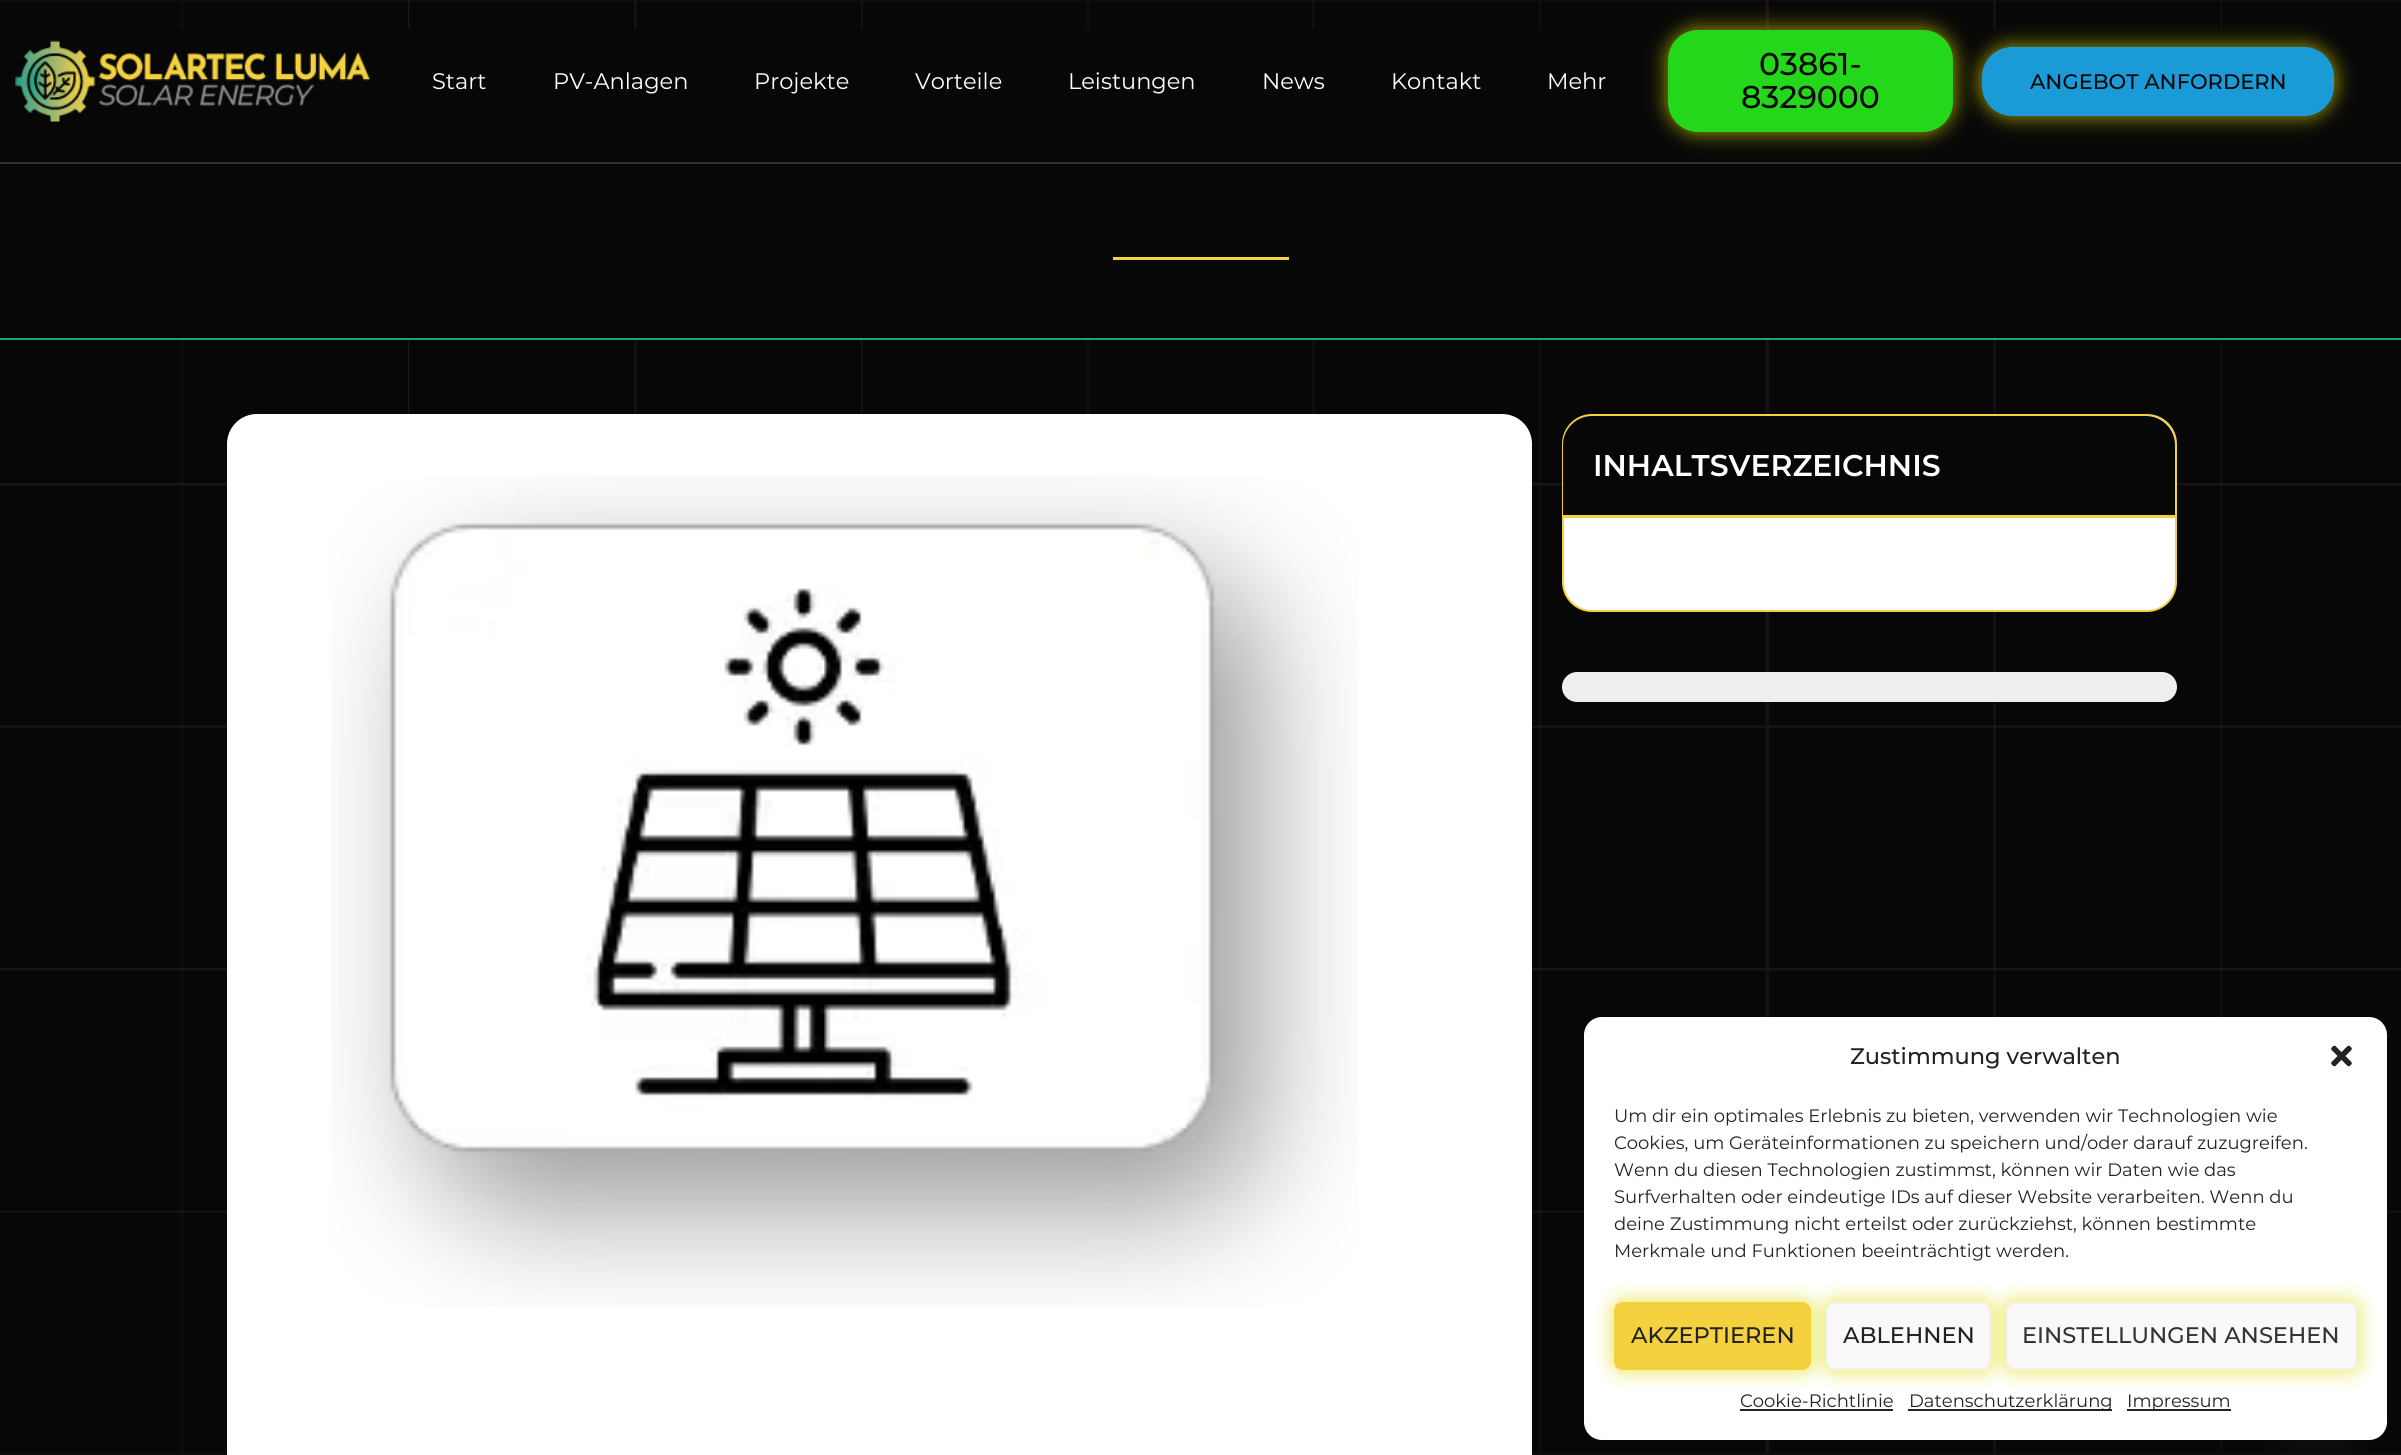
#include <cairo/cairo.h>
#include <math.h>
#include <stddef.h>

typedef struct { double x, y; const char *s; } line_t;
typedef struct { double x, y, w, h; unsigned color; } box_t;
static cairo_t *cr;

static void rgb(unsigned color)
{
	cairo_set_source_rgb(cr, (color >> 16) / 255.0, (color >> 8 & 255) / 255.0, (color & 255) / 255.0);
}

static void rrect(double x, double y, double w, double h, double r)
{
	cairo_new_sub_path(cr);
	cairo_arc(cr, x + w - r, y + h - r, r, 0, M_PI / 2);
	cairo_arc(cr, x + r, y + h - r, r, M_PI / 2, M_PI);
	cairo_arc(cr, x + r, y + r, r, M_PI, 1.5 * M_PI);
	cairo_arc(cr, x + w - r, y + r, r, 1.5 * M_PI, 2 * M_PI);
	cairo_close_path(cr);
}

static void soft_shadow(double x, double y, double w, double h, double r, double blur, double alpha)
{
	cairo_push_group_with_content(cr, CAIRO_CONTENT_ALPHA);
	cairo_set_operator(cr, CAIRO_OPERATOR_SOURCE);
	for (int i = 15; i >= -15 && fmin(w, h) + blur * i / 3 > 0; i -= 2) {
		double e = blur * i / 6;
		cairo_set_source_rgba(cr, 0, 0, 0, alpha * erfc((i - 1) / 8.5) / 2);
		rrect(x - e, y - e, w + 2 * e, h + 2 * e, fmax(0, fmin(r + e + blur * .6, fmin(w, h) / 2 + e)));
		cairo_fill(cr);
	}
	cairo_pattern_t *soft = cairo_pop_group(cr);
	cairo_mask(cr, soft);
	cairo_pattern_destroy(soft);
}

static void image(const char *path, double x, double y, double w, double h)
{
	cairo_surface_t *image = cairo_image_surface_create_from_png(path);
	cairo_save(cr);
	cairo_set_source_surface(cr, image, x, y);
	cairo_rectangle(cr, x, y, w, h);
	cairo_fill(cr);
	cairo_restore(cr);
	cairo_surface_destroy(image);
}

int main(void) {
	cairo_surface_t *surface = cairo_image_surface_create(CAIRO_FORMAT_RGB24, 2401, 1455);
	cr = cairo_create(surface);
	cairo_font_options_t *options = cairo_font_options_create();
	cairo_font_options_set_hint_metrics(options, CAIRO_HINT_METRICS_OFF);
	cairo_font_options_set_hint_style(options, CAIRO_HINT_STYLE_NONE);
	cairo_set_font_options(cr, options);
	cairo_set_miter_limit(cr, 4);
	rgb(0x070707);
	cairo_paint(cr);
	image("img/1.png", 0, 0, 2401, 1455);
	rgb(0x070707);
	cairo_rectangle(cr, 0, 29, 2401, 309);
	cairo_fill(cr);
	rgb(0x313131);
	cairo_rectangle(cr, 0, 162, 2401, 2);
	cairo_fill(cr);
	image("img/2.png", 15, 40, 356, 82);
	rgb(0xe0dc05);
	soft_shadow(1665, 27, 291, 108, 33, 9, 0.6);
	rgb(0x25d71a);
	rrect(1668, 30, 285, 102, 30);
	cairo_fill(cr);
	rgb(0xe0dc05);
	soft_shadow(1979, 44, 358, 75, 33, 9, 0.6);
	rgb(0x1a9bd7);
	rrect(1982, 47, 352, 69, 30);
	cairo_fill(cr);
	rgb(0x18a085);
	cairo_rectangle(cr, 0, 338, 2401, 2);
	cairo_fill(cr);
	rgb(0xf5d13f);
	cairo_rectangle(cr, 1113, 257, 176, 3);
	cairo_fill(cr);
	rgb(0xffffff);
	rrect(227, 414, 1305, 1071, 30);
	cairo_fill(cr);
	image("img/3.png", 331, 476, 1027, 831);
	rrect(1563, 415, 613, 196, 29);
	cairo_fill_preserve(cr);
	rgb(0xf5d13f);
	cairo_stroke(cr);
	rgb(0x070707);
	cairo_new_path(cr);
	cairo_move_to(cr, 1592, 416);
	cairo_line_to(cr, 2146, 416);
	cairo_curve_to(cr, 2162, 416, 2175, 429, 2175, 445);
	cairo_line_to(cr, 2175, 518);
	cairo_line_to(cr, 1563, 518);
	cairo_line_to(cr, 1563, 445);
	cairo_curve_to(cr, 1563, 429, 1576, 416, 1592, 416);
	cairo_close_path(cr);
	cairo_fill(cr);
	rgb(0xf5d13f);
	cairo_rectangle(cr, 1563, 515, 612, 3);
	cairo_fill(cr);
	rgb(0xeeeeee);
	rrect(1562, 672, 615, 30, 15);
	cairo_fill(cr);
	rgb(0x49687e);
	soft_shadow(2277, 1361, 81, 81, 40.5, 18, 0.16);
	rgb(0xffffff);
	rrect(1584, 1017, 803, 423, 18);
	cairo_fill(cr);
	image("img/4.png", 2331, 1045, 21, 22);
	rgb(0xe0dc05);
	soft_shadow(1611, 1299, 203, 74, 12, 9, 0.6);
	rgb(0xf5d13f);
	rrect(1615, 1303, 195, 66, 8);
	cairo_fill_preserve(cr);
	cairo_stroke(cr);
	rgb(0xe0dc05);
	soft_shadow(1823, 1299, 171, 74, 12, 9, 0.6);
	rgb(0xf9f9f9);
	rrect(1827, 1303, 163, 66, 8);
	cairo_fill_preserve(cr);
	rgb(0xf2f2f2);
	cairo_stroke(cr);
	rgb(0xe0dc05);
	soft_shadow(2003, 1299, 357, 74, 12, 9, 0.6);
	rgb(0xf9f9f9);
	rrect(2007, 1303, 349, 66, 8);
	cairo_fill_preserve(cr);
	rgb(0xf2f2f2);
	cairo_stroke(cr);
	{
		static const box_t items[] = {
			{1740, 1409, 153, 2, 0x222222},
			{1908, 1409, 204, 2, 0x222222},
			{2127, 1409, 104, 2, 0x222222},
		};
		for (size_t i = 0; i < sizeof items / sizeof *items; i++) {
			rgb(items[i].color);
			cairo_rectangle(cr, items[i].x, items[i].y, items[i].w, items[i].h);
			cairo_fill(cr);
		}
	}
	cairo_select_font_face(cr, "Montserrat", CAIRO_FONT_SLANT_NORMAL, CAIRO_FONT_WEIGHT_NORMAL);
	cairo_set_font_size(cr, 22.5);
	rgb(0xffffff);
	{
		static const line_t items[] = {
			{432, 89, "Start"},
			{553, 89, "PV-Anlagen"},
			{754, 89, "Projekte"},
			{915, 89, "Vorteile"},
			{1068, 89, "Leistungen"},
			{1262, 89, "News"},
			{1391, 89, "Kontakt"},
			{1547, 89, "Mehr"},
		};
		for (size_t i = 0; i < sizeof items / sizeof *items; i++) {
			cairo_move_to(cr, items[i].x, items[i].y);
			cairo_show_text(cr, items[i].s);
		}
	}
	cairo_select_font_face(cr, "Montserrat Medium", CAIRO_FONT_SLANT_NORMAL, CAIRO_FONT_WEIGHT_NORMAL);
	cairo_set_font_size(cr, 31.5);
	rgb(0x070707);
	cairo_move_to(cr, 1759, 75);
	cairo_show_text(cr, "03861-");
	cairo_move_to(cr, 1741, 108);
	cairo_show_text(cr, "8329000");
	cairo_set_font_size(cr, 21);
	cairo_move_to(cr, 2030, 89);
	cairo_show_text(cr, "ANGEBOT ANFORDERN");
	cairo_select_font_face(cr, "Montserrat SemiBold", CAIRO_FONT_SLANT_NORMAL, CAIRO_FONT_WEIGHT_NORMAL);
	cairo_set_font_size(cr, 30);
	rgb(0xffffff);
	cairo_move_to(cr, 1593, 476);
	cairo_show_text(cr, "INHALTSVERZEICHNIS");
	cairo_select_font_face(cr, "Montserrat Medium", CAIRO_FONT_SLANT_NORMAL, CAIRO_FONT_WEIGHT_NORMAL);
	cairo_set_font_size(cr, 22.5);
	rgb(0x222222);
	cairo_move_to(cr, 1850, 1064);
	cairo_show_text(cr, "Zustimmung verwalten");
	cairo_select_font_face(cr, "Montserrat", CAIRO_FONT_SLANT_NORMAL, CAIRO_FONT_WEIGHT_NORMAL);
	cairo_set_font_size(cr, 18);
	{
		static const line_t items[] = {
			{1614, 1122, "Um dir ein optimales Erlebnis zu bieten, verwenden wir Technologien wie"},
			{1614, 1149, "Cookies, um Geräteinformationen zu speichern und/oder darauf zuzugreifen."},
			{1614, 1176, "Wenn du diesen Technologien zustimmst, können wir Daten wie das"},
			{1614, 1203, "Surfverhalten oder eindeutige IDs auf dieser Website verarbeiten. Wenn du"},
			{1614, 1230, "deine Zustimmung nicht erteilst oder zurückziehst, können bestimmte"},
			{1614, 1257, "Merkmale und Funktionen beeinträchtigt werden."},
		};
		for (size_t i = 0; i < sizeof items / sizeof *items; i++) {
			cairo_move_to(cr, items[i].x, items[i].y);
			cairo_show_text(cr, items[i].s);
		}
	}
	cairo_select_font_face(cr, "Montserrat Medium", CAIRO_FONT_SLANT_NORMAL, CAIRO_FONT_WEIGHT_NORMAL);
	cairo_set_font_size(cr, 22.5);
	cairo_move_to(cr, 1631, 1343);
	cairo_show_text(cr, "AKZEPTIEREN");
	cairo_move_to(cr, 1843, 1343);
	cairo_show_text(cr, "ABLEHNEN");
	rgb(0x333333);
	cairo_move_to(cr, 2022, 1343);
	cairo_show_text(cr, "EINSTELLUNGEN ANSEHEN");
	cairo_select_font_face(cr, "Montserrat", CAIRO_FONT_SLANT_NORMAL, CAIRO_FONT_WEIGHT_NORMAL);
	cairo_set_font_size(cr, 18);
	rgb(0x222222);
	{
		static const line_t items[] = {
			{1740, 1407, "Cookie-Richtlinie"},
			{1909, 1407, "Datenschutzerklärung"},
			{2127, 1407, "Impressum"},
		};
		for (size_t i = 0; i < sizeof items / sizeof *items; i++) {
			cairo_move_to(cr, items[i].x, items[i].y);
			cairo_show_text(cr, items[i].s);
		}
	}
	cairo_surface_write_to_png(surface, "page.png");
	cairo_font_options_destroy(options);
	cairo_destroy(cr);
	cairo_surface_destroy(surface);
	return 0;
}
